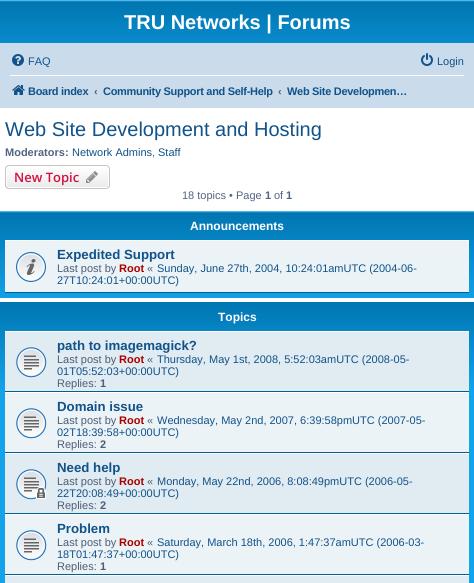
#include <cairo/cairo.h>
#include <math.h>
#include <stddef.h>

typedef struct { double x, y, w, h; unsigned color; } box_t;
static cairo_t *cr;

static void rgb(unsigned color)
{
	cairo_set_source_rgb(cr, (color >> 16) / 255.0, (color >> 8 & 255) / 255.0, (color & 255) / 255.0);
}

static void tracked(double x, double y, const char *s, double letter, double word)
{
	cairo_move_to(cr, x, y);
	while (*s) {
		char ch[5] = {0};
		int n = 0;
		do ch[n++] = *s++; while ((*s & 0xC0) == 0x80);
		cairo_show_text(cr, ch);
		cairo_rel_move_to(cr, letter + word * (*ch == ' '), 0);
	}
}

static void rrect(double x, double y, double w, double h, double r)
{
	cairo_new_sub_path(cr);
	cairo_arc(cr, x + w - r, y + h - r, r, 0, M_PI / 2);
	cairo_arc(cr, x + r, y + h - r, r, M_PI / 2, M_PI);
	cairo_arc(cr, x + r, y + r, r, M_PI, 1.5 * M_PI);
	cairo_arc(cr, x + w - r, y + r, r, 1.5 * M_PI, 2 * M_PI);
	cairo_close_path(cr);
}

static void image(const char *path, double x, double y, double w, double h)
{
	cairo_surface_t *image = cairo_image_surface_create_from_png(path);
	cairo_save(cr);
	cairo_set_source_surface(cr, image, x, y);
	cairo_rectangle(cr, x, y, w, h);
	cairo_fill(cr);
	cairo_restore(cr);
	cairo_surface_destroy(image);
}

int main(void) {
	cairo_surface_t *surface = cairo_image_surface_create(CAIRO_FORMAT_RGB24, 474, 583);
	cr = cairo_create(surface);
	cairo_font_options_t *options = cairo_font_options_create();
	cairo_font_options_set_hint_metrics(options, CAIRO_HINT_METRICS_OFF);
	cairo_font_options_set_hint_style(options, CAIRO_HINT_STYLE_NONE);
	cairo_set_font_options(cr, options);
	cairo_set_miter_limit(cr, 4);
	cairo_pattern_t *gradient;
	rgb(0xffffff);
	cairo_paint(cr);
	gradient = cairo_pattern_create_linear(237, 0, 237, 92);
	cairo_pattern_add_color_stop_rgba(gradient, 0, 0.416, 0.808, 1, 1);
	cairo_pattern_add_color_stop_rgba(gradient, 0.02, 0, 0.463, 0.694, 1);
	cairo_pattern_add_color_stop_rgba(gradient, 1, 0.071, 0.639, 0.922, 1);
	cairo_set_source(cr, gradient);
	cairo_pattern_destroy(gradient);
	cairo_rectangle(cr, 0, 0, 474, 43);
	cairo_fill(cr);
	rgb(0xcadceb);
	cairo_rectangle(cr, 0, 43, 474, 65);
	cairo_fill(cr);
	image("img/1.png", 12, 54, 12, 12);
	image("img/2.png", 421, 53, 12, 13);
	rgb(0xffffff);
	cairo_rectangle(cr, 10, 75, 454, 1);
	cairo_fill(cr);
	image("img/3.png", 12, 85, 13, 10);
	cairo_save(cr);
	rrect(5, 165, 105, 24, 4);
	cairo_clip(cr);
	gradient = cairo_pattern_create_linear(58, 166, 58, 188);
	cairo_pattern_add_color_stop_rgba(gradient, 0, 1, 1, 1, 1);
	cairo_pattern_add_color_stop_rgba(gradient, 1, 0.914, 0.914, 0.914, 1);
	cairo_set_source(cr, gradient);
	cairo_pattern_destroy(gradient);
	cairo_rectangle(cr, 5, 166, 105, 22);
	cairo_fill(cr);
	cairo_restore(cr);
	rrect(6.5, 166.5, 102, 21, 2.5);
	cairo_set_line_width(cr, 1);
	cairo_stroke(cr);
	rrect(5.5, 165.5, 104, 23, 3.5);
	rgb(0xc7c3bf);
	cairo_stroke(cr);
	image("img/4.png", 86, 171, 12, 12);
	gradient = cairo_pattern_create_linear(237, 211, 237, 303);
	cairo_pattern_add_color_stop_rgba(gradient, 0, 0.416, 0.808, 1, 1);
	cairo_pattern_add_color_stop_rgba(gradient, 0.02, 0, 0.463, 0.694, 1);
	cairo_pattern_add_color_stop_rgba(gradient, 1, 0.071, 0.639, 0.922, 1);
	cairo_set_source(cr, gradient);
	cairo_pattern_destroy(gradient);
	cairo_rectangle(cr, 0, 211, 474, 87);
	cairo_fill(cr);
	{
		static const box_t items[] = {
			{5, 241, 464, 51, 0xecf3f7},
			{5, 240, 464, 1, 0xffffff},
			{5, 292, 464, 1, 0x00608f},
		};
		for (size_t i = 0; i < sizeof items / sizeof *items; i++) {
			rgb(items[i].color);
			cairo_rectangle(cr, items[i].x, items[i].y, items[i].w, items[i].h);
			cairo_fill(cr);
		}
	}
	image("img/5.png", 16, 252, 30, 30);
	gradient = cairo_pattern_create_linear(237, 302, 237, 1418);
	cairo_pattern_add_color_stop_rgba(gradient, 0, 0.416, 0.808, 1, 1);
	cairo_pattern_add_color_stop_rgba(gradient, 0, 0, 0.463, 0.694, 1);
	cairo_pattern_add_color_stop_rgba(gradient, 0.08, 0.071, 0.639, 0.922, 1);
	cairo_pattern_add_color_stop_rgba(gradient, 1, 0.071, 0.639, 0.922, 1);
	cairo_set_source(cr, gradient);
	cairo_pattern_destroy(gradient);
	cairo_rectangle(cr, 0, 302, 474, 281);
	cairo_fill(cr);
	{
		static const box_t items[] = {
			{5, 332, 464, 59, 0xe1ebf2},
			{5, 331, 464, 1, 0xffffff},
			{5, 391, 464, 1, 0x00608f},
		};
		for (size_t i = 0; i < sizeof items / sizeof *items; i++) {
			rgb(items[i].color);
			cairo_rectangle(cr, items[i].x, items[i].y, items[i].w, items[i].h);
			cairo_fill(cr);
		}
	}
	image("img/6.png", 16, 347, 31, 31);
	{
		static const box_t items[] = {
			{5, 393, 464, 59, 0xecf3f7},
			{5, 392, 464, 1, 0xffffff},
			{5, 452, 464, 1, 0x00608f},
		};
		for (size_t i = 0; i < sizeof items / sizeof *items; i++) {
			rgb(items[i].color);
			cairo_rectangle(cr, items[i].x, items[i].y, items[i].w, items[i].h);
			cairo_fill(cr);
		}
	}
	image("img/7.png", 16, 408, 31, 31);
	{
		static const box_t items[] = {
			{5, 454, 464, 59, 0xe1ebf2},
			{5, 453, 464, 1, 0xffffff},
			{5, 513, 464, 1, 0x00608f},
		};
		for (size_t i = 0; i < sizeof items / sizeof *items; i++) {
			rgb(items[i].color);
			cairo_rectangle(cr, items[i].x, items[i].y, items[i].w, items[i].h);
			cairo_fill(cr);
		}
	}
	image("img/8.png", 16, 469, 31, 31);
	{
		static const box_t items[] = {
			{5, 515, 464, 59, 0xecf3f7},
			{5, 514, 464, 1, 0xffffff},
			{5, 574, 464, 1, 0x00608f},
		};
		for (size_t i = 0; i < sizeof items / sizeof *items; i++) {
			rgb(items[i].color);
			cairo_rectangle(cr, items[i].x, items[i].y, items[i].w, items[i].h);
			cairo_fill(cr);
		}
	}
	image("img/7.png", 16, 530, 31, 31);
	rgb(0xe1ebf2);
	cairo_rectangle(cr, 5, 576, 464, 7);
	cairo_fill(cr);
	rgb(0xffffff);
	cairo_rectangle(cr, 5, 575, 464, 1);
	cairo_fill(cr);
	cairo_select_font_face(cr, "Liberation Sans", CAIRO_FONT_SLANT_NORMAL, CAIRO_FONT_WEIGHT_BOLD);
	cairo_set_font_size(cr, 20);
	cairo_move_to(cr, 124, 29);
	cairo_show_text(cr, "TRU Networks | Forums");
	cairo_select_font_face(cr, "Liberation Sans", CAIRO_FONT_SLANT_NORMAL, CAIRO_FONT_WEIGHT_NORMAL);
	cairo_set_font_size(cr, 11);
	rgb(0x105289);
	cairo_move_to(cr, 28, 65);
	cairo_show_text(cr, "FAQ");
	cairo_move_to(cr, 437, 65);
	cairo_show_text(cr, "Login");
	cairo_select_font_face(cr, "Liberation Sans", CAIRO_FONT_SLANT_NORMAL, CAIRO_FONT_WEIGHT_BOLD);
	tracked(28, 95, "Board index", -0.3, 0);
	rgb(0x536482);
	cairo_move_to(cr, 94, 95);
	cairo_show_text(cr, "‹");
	rgb(0x105289);
	tracked(103, 95, "Community Support and Self-Help", -0.3, 0);
	rgb(0x536482);
	cairo_move_to(cr, 278, 95);
	cairo_show_text(cr, "‹");
	rgb(0x105289);
	tracked(287, 95, "Web Site Developmen…", -0.3, 0);
	cairo_select_font_face(cr, "Liberation Sans", CAIRO_FONT_SLANT_NORMAL, CAIRO_FONT_WEIGHT_NORMAL);
	cairo_set_font_size(cr, 20);
	cairo_move_to(cr, 5, 136);
	cairo_show_text(cr, "Web Site Development and Hosting");
	cairo_select_font_face(cr, "Liberation Sans", CAIRO_FONT_SLANT_NORMAL, CAIRO_FONT_WEIGHT_BOLD);
	cairo_set_font_size(cr, 11);
	rgb(0x536482);
	cairo_move_to(cr, 5, 156);
	cairo_show_text(cr, "Moderators:");
	cairo_select_font_face(cr, "Liberation Sans", CAIRO_FONT_SLANT_NORMAL, CAIRO_FONT_WEIGHT_NORMAL);
	rgb(0x105289);
	cairo_move_to(cr, 72, 156);
	cairo_show_text(cr, "Network Admins");
	rgb(0x536482);
	cairo_move_to(cr, 152, 156);
	cairo_show_text(cr, ",");
	rgb(0x105289);
	cairo_move_to(cr, 158, 156);
	cairo_show_text(cr, "Staff");
	cairo_select_font_face(cr, "Open Sans SemiBold", CAIRO_FONT_SLANT_NORMAL, CAIRO_FONT_WEIGHT_NORMAL);
	cairo_set_font_size(cr, 13);
	rgb(0xd31141);
	cairo_move_to(cr, 14, 182);
	cairo_show_text(cr, "New Topic");
	cairo_select_font_face(cr, "Liberation Sans", CAIRO_FONT_SLANT_NORMAL, CAIRO_FONT_WEIGHT_NORMAL);
	cairo_set_font_size(cr, 11);
	rgb(0x536482);
	cairo_move_to(cr, 182, 199);
	cairo_show_text(cr, "18 topics • Page");
	cairo_select_font_face(cr, "Liberation Sans", CAIRO_FONT_SLANT_NORMAL, CAIRO_FONT_WEIGHT_BOLD);
	cairo_move_to(cr, 265, 199);
	cairo_show_text(cr, "1");
	cairo_select_font_face(cr, "Liberation Sans", CAIRO_FONT_SLANT_NORMAL, CAIRO_FONT_WEIGHT_NORMAL);
	cairo_move_to(cr, 274, 199);
	cairo_show_text(cr, "of");
	cairo_select_font_face(cr, "Liberation Sans", CAIRO_FONT_SLANT_NORMAL, CAIRO_FONT_WEIGHT_BOLD);
	cairo_move_to(cr, 286, 199);
	cairo_show_text(cr, "1");
	cairo_set_font_size(cr, 12);
	rgb(0xffffff);
	cairo_move_to(cr, 190, 230);
	cairo_show_text(cr, "Announcements");
	cairo_set_font_size(cr, 13.25);
	rgb(0x105289);
	cairo_move_to(cr, 57, 259);
	cairo_show_text(cr, "Expedited Support");
	cairo_select_font_face(cr, "Liberation Sans", CAIRO_FONT_SLANT_NORMAL, CAIRO_FONT_WEIGHT_NORMAL);
	cairo_set_font_size(cr, 11);
	rgb(0x4c5d77);
	cairo_move_to(cr, 57, 272);
	cairo_show_text(cr, "Last post by");
	cairo_select_font_face(cr, "Liberation Sans", CAIRO_FONT_SLANT_NORMAL, CAIRO_FONT_WEIGHT_BOLD);
	rgb(0xaa0000);
	cairo_move_to(cr, 119, 272);
	cairo_show_text(cr, "Root");
	cairo_select_font_face(cr, "Liberation Sans", CAIRO_FONT_SLANT_NORMAL, CAIRO_FONT_WEIGHT_NORMAL);
	rgb(0x4c5d77);
	cairo_move_to(cr, 147, 272);
	cairo_show_text(cr, "«");
	rgb(0x105289);
	cairo_move_to(cr, 157, 272);
	cairo_show_text(cr, "Sunday, June 27th, 2004, 10:24:01amUTC (2004-06-");
	cairo_move_to(cr, 57, 284);
	cairo_show_text(cr, "27T10:24:01+00:00UTC)");
	cairo_select_font_face(cr, "Liberation Sans", CAIRO_FONT_SLANT_NORMAL, CAIRO_FONT_WEIGHT_BOLD);
	cairo_set_font_size(cr, 12);
	rgb(0xffffff);
	cairo_move_to(cr, 218, 321);
	cairo_show_text(cr, "Topics");
	cairo_set_font_size(cr, 13.25);
	rgb(0x105289);
	cairo_move_to(cr, 57, 350);
	cairo_show_text(cr, "path to imagemagick?");
	cairo_select_font_face(cr, "Liberation Sans", CAIRO_FONT_SLANT_NORMAL, CAIRO_FONT_WEIGHT_NORMAL);
	cairo_set_font_size(cr, 11);
	rgb(0x4c5d77);
	cairo_move_to(cr, 57, 363);
	cairo_show_text(cr, "Last post by");
	cairo_select_font_face(cr, "Liberation Sans", CAIRO_FONT_SLANT_NORMAL, CAIRO_FONT_WEIGHT_BOLD);
	rgb(0xaa0000);
	cairo_move_to(cr, 119, 363);
	cairo_show_text(cr, "Root");
	cairo_select_font_face(cr, "Liberation Sans", CAIRO_FONT_SLANT_NORMAL, CAIRO_FONT_WEIGHT_NORMAL);
	rgb(0x4c5d77);
	cairo_move_to(cr, 147, 363);
	cairo_show_text(cr, "«");
	rgb(0x105289);
	cairo_move_to(cr, 157, 363);
	cairo_show_text(cr, "Thursday, May 1st, 2008, 5:52:03amUTC (2008-05-");
	cairo_move_to(cr, 57, 375);
	cairo_show_text(cr, "01T05:52:03+00:00UTC)");
	rgb(0x4c5d77);
	cairo_move_to(cr, 57, 387);
	cairo_show_text(cr, "Replies:");
	cairo_select_font_face(cr, "Liberation Sans", CAIRO_FONT_SLANT_NORMAL, CAIRO_FONT_WEIGHT_BOLD);
	cairo_move_to(cr, 100, 387);
	cairo_show_text(cr, "1");
	cairo_set_font_size(cr, 13.25);
	rgb(0x105289);
	cairo_move_to(cr, 57, 411);
	cairo_show_text(cr, "Domain issue");
	cairo_select_font_face(cr, "Liberation Sans", CAIRO_FONT_SLANT_NORMAL, CAIRO_FONT_WEIGHT_NORMAL);
	cairo_set_font_size(cr, 11);
	rgb(0x4c5d77);
	cairo_move_to(cr, 57, 424);
	cairo_show_text(cr, "Last post by");
	cairo_select_font_face(cr, "Liberation Sans", CAIRO_FONT_SLANT_NORMAL, CAIRO_FONT_WEIGHT_BOLD);
	rgb(0xaa0000);
	cairo_move_to(cr, 119, 424);
	cairo_show_text(cr, "Root");
	cairo_select_font_face(cr, "Liberation Sans", CAIRO_FONT_SLANT_NORMAL, CAIRO_FONT_WEIGHT_NORMAL);
	rgb(0x4c5d77);
	cairo_move_to(cr, 147, 424);
	cairo_show_text(cr, "«");
	rgb(0x105289);
	cairo_move_to(cr, 157, 424);
	cairo_show_text(cr, "Wednesday, May 2nd, 2007, 6:39:58pmUTC (2007-05-");
	cairo_move_to(cr, 57, 436);
	cairo_show_text(cr, "02T18:39:58+00:00UTC)");
	rgb(0x4c5d77);
	cairo_move_to(cr, 57, 448);
	cairo_show_text(cr, "Replies:");
	cairo_select_font_face(cr, "Liberation Sans", CAIRO_FONT_SLANT_NORMAL, CAIRO_FONT_WEIGHT_BOLD);
	cairo_move_to(cr, 100, 448);
	cairo_show_text(cr, "2");
	cairo_set_font_size(cr, 13.25);
	rgb(0x105289);
	cairo_move_to(cr, 57, 472);
	cairo_show_text(cr, "Need help");
	cairo_select_font_face(cr, "Liberation Sans", CAIRO_FONT_SLANT_NORMAL, CAIRO_FONT_WEIGHT_NORMAL);
	cairo_set_font_size(cr, 11);
	rgb(0x4c5d77);
	cairo_move_to(cr, 57, 485);
	cairo_show_text(cr, "Last post by");
	cairo_select_font_face(cr, "Liberation Sans", CAIRO_FONT_SLANT_NORMAL, CAIRO_FONT_WEIGHT_BOLD);
	rgb(0xaa0000);
	cairo_move_to(cr, 119, 485);
	cairo_show_text(cr, "Root");
	cairo_select_font_face(cr, "Liberation Sans", CAIRO_FONT_SLANT_NORMAL, CAIRO_FONT_WEIGHT_NORMAL);
	rgb(0x4c5d77);
	cairo_move_to(cr, 147, 485);
	cairo_show_text(cr, "«");
	rgb(0x105289);
	cairo_move_to(cr, 157, 485);
	cairo_show_text(cr, "Monday, May 22nd, 2006, 8:08:49pmUTC (2006-05-");
	cairo_move_to(cr, 57, 497);
	cairo_show_text(cr, "22T20:08:49+00:00UTC)");
	rgb(0x4c5d77);
	cairo_move_to(cr, 57, 509);
	cairo_show_text(cr, "Replies:");
	cairo_select_font_face(cr, "Liberation Sans", CAIRO_FONT_SLANT_NORMAL, CAIRO_FONT_WEIGHT_BOLD);
	cairo_move_to(cr, 100, 509);
	cairo_show_text(cr, "2");
	cairo_set_font_size(cr, 13.25);
	rgb(0x105289);
	cairo_move_to(cr, 57, 533);
	cairo_show_text(cr, "Problem");
	cairo_select_font_face(cr, "Liberation Sans", CAIRO_FONT_SLANT_NORMAL, CAIRO_FONT_WEIGHT_NORMAL);
	cairo_set_font_size(cr, 11);
	rgb(0x4c5d77);
	cairo_move_to(cr, 57, 546);
	cairo_show_text(cr, "Last post by");
	cairo_select_font_face(cr, "Liberation Sans", CAIRO_FONT_SLANT_NORMAL, CAIRO_FONT_WEIGHT_BOLD);
	rgb(0xaa0000);
	cairo_move_to(cr, 119, 546);
	cairo_show_text(cr, "Root");
	cairo_select_font_face(cr, "Liberation Sans", CAIRO_FONT_SLANT_NORMAL, CAIRO_FONT_WEIGHT_NORMAL);
	rgb(0x4c5d77);
	cairo_move_to(cr, 147, 546);
	cairo_show_text(cr, "«");
	rgb(0x105289);
	cairo_move_to(cr, 157, 546);
	cairo_show_text(cr, "Saturday, March 18th, 2006, 1:47:37amUTC (2006-03-");
	cairo_move_to(cr, 57, 558);
	cairo_show_text(cr, "18T01:47:37+00:00UTC)");
	rgb(0x4c5d77);
	cairo_move_to(cr, 57, 570);
	cairo_show_text(cr, "Replies:");
	cairo_select_font_face(cr, "Liberation Sans", CAIRO_FONT_SLANT_NORMAL, CAIRO_FONT_WEIGHT_BOLD);
	cairo_move_to(cr, 100, 570);
	cairo_show_text(cr, "1");
	cairo_surface_write_to_png(surface, "page.png");
	cairo_font_options_destroy(options);
	cairo_destroy(cr);
	cairo_surface_destroy(surface);
	return 0;
}
